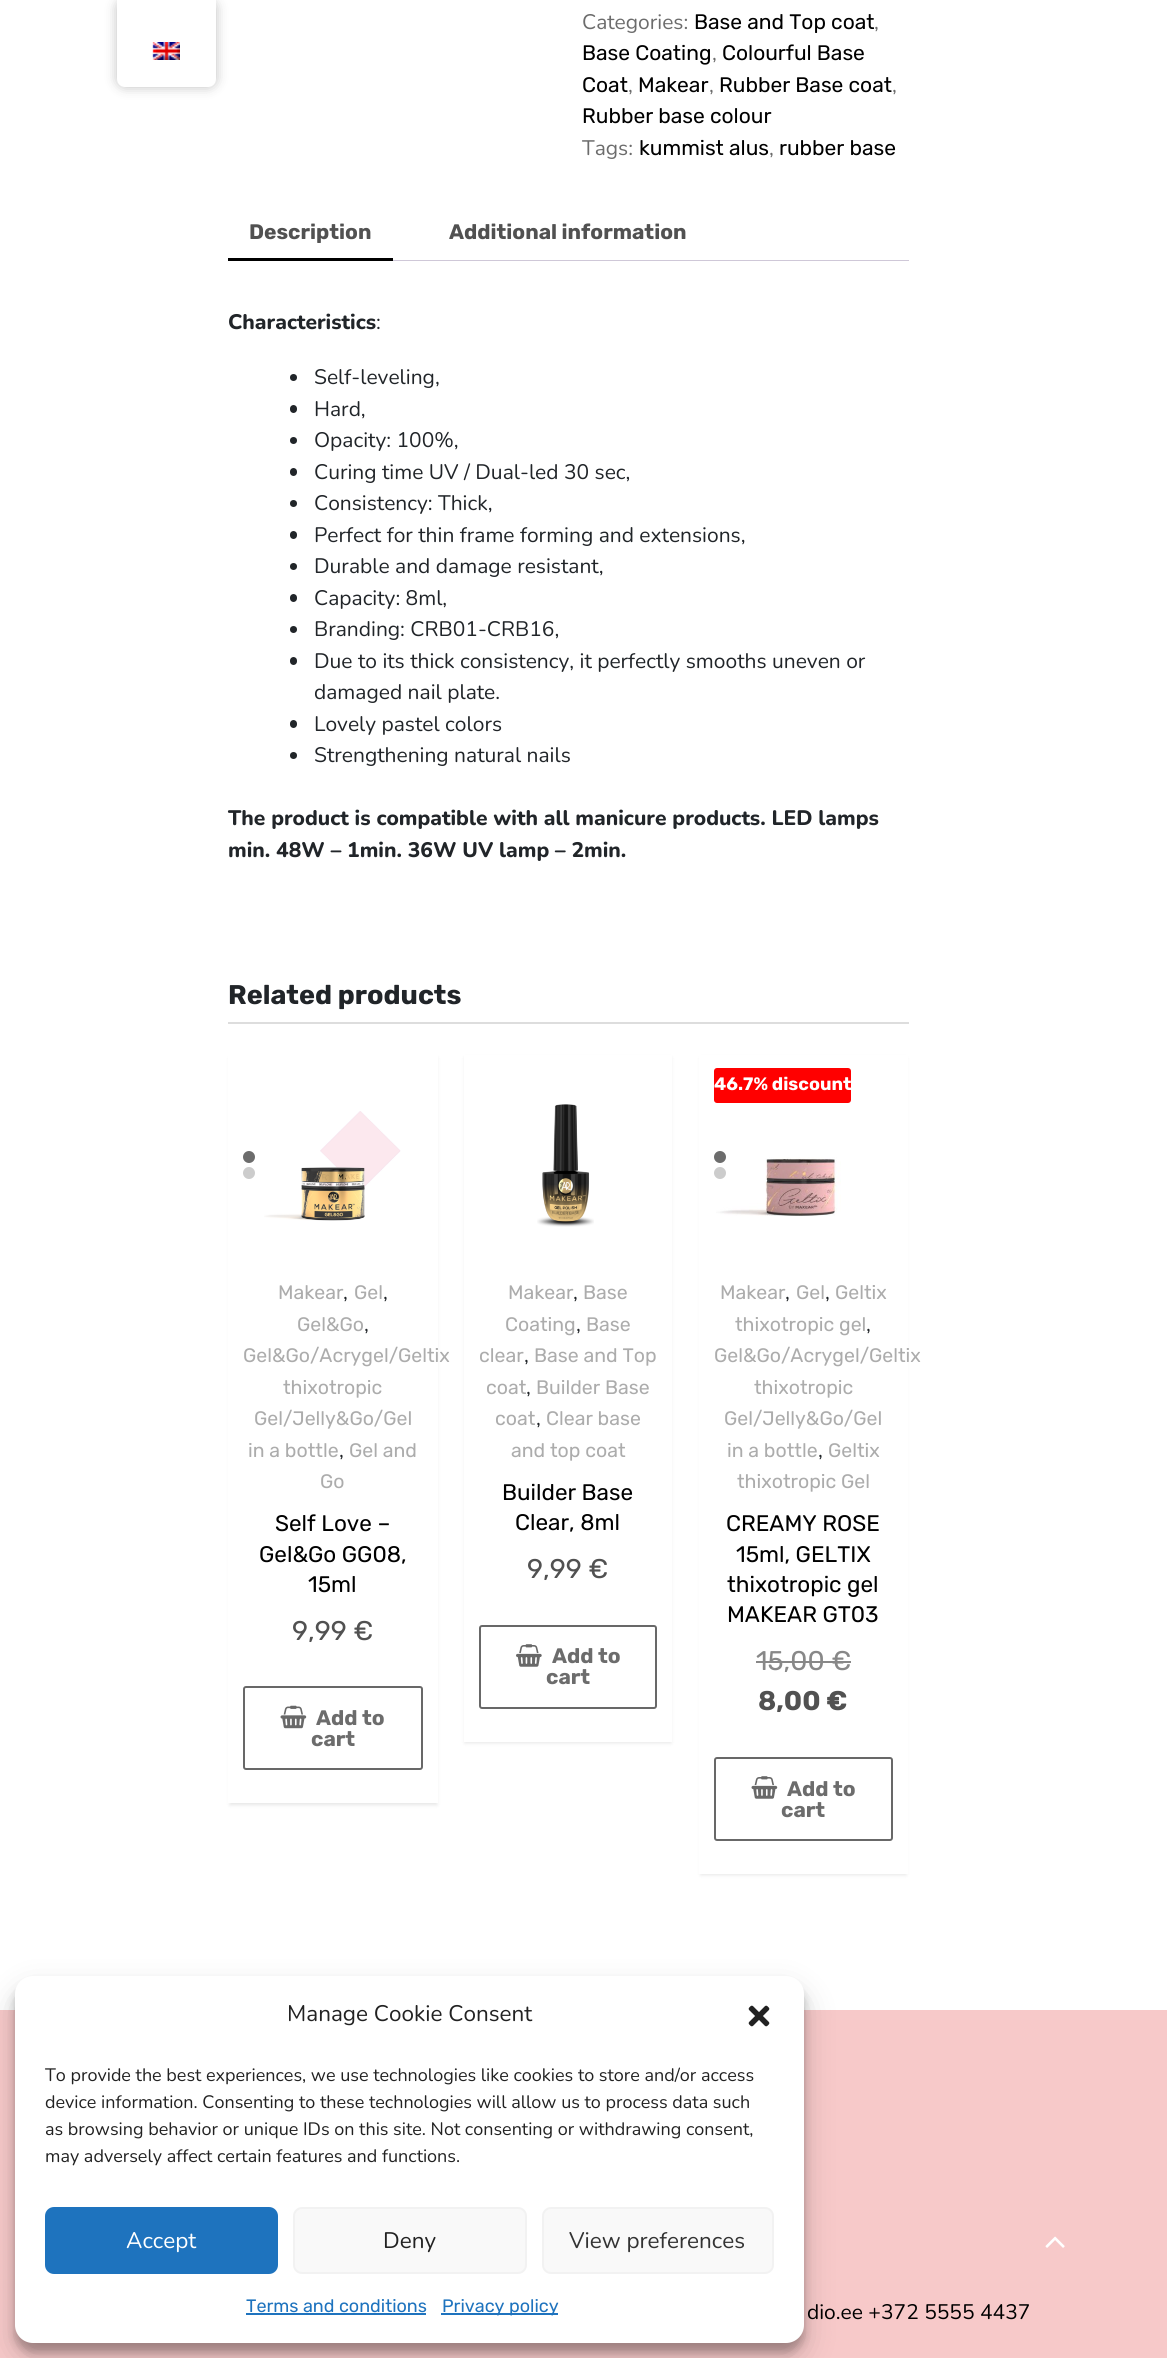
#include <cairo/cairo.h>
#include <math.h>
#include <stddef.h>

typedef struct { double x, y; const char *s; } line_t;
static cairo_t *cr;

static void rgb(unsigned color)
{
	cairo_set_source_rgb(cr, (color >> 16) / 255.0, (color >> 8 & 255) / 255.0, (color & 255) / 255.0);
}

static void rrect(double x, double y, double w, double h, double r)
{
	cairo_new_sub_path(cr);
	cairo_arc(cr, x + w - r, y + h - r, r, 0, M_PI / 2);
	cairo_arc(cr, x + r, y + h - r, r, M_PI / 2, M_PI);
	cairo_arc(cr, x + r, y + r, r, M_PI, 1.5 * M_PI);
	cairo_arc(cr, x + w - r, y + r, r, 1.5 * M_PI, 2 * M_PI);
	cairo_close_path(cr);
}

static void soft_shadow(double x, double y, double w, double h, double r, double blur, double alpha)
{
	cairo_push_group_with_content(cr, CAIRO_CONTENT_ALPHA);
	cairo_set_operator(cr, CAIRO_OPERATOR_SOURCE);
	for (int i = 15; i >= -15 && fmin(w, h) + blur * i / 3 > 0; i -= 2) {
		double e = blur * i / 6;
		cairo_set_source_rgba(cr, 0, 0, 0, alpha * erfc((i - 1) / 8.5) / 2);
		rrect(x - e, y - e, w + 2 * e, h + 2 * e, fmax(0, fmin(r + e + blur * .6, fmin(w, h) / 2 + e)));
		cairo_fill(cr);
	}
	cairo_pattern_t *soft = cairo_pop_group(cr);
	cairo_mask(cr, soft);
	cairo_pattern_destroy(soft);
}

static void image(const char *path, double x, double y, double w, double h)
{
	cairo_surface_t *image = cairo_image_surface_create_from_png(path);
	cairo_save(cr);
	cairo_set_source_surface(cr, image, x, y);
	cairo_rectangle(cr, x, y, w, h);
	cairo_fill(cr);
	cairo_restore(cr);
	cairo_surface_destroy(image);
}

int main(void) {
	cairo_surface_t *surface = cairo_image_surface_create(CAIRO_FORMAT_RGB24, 1167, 2358);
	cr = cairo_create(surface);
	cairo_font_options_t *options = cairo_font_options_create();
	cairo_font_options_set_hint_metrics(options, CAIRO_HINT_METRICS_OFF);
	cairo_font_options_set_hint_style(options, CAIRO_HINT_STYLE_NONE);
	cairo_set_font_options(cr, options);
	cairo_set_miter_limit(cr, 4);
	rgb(0xffffff);
	cairo_paint(cr);
	rgb(0x000000);
	soft_shadow(117, 0, 99, 87, 8, 6, 0.25);
	rgb(0xffffff);
	cairo_new_path(cr);
	cairo_move_to(cr, 117, 0);
	cairo_line_to(cr, 216, 0);
	cairo_line_to(cr, 216, 79);
	cairo_curve_to(cr, 216, 83.5, 212.5, 87, 208, 87);
	cairo_line_to(cr, 125, 87);
	cairo_curve_to(cr, 120.5, 87, 117, 83.5, 117, 79);
	cairo_close_path(cr);
	cairo_fill(cr);
	image("img/1.png", 152, 42, 28, 18);
	rgb(0x000000);
	cairo_rectangle(cr, 228, 258, 165, 3);
	cairo_fill(cr);
	rgb(0xcfc8d8);
	cairo_rectangle(cr, 393, 260, 516, 1);
	cairo_fill(cr);
	rgb(0x212529);
	cairo_arc(cr, 293.5, 377.5, 3.5, 0, 2 * M_PI);
	cairo_fill(cr);
	rrect(290, 405, 7, 8, 3.5);
	cairo_fill(cr);
	cairo_arc(cr, 293.5, 440.5, 3.5, 0, 2 * M_PI);
	cairo_fill(cr);
	rrect(290, 468, 7, 8, 3.5);
	cairo_fill(cr);
	cairo_arc(cr, 293.5, 503.5, 3.5, 0, 2 * M_PI);
	cairo_fill(cr);
	rrect(290, 531, 7, 8, 3.5);
	cairo_fill(cr);
	cairo_arc(cr, 293.5, 566.5, 3.5, 0, 2 * M_PI);
	cairo_fill(cr);
	rrect(290, 594, 7, 8, 3.5);
	cairo_fill(cr);
	cairo_arc(cr, 293.5, 629.5, 3.5, 0, 2 * M_PI);
	cairo_fill(cr);
	rrect(290, 657, 7, 8, 3.5);
	cairo_fill(cr);
	rrect(290, 720, 7, 8, 3.5);
	cairo_fill(cr);
	cairo_arc(cr, 293.5, 755.5, 3.5, 0, 2 * M_PI);
	cairo_fill(cr);
	rgb(0xdddddd);
	cairo_rectangle(cr, 228, 1022, 681, 2);
	cairo_fill(cr);
	cairo_save(cr);
	cairo_set_fill_rule(cr, CAIRO_FILL_RULE_EVEN_ODD);
	cairo_new_path(cr);
	cairo_move_to(cr, 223, 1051);
	cairo_line_to(cr, 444, 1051);
	cairo_line_to(cr, 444, 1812);
	cairo_line_to(cr, 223, 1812);
	cairo_close_path(cr);
	cairo_move_to(cr, 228, 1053);
	cairo_line_to(cr, 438, 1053);
	cairo_line_to(cr, 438, 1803);
	cairo_line_to(cr, 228, 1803);
	cairo_close_path(cr);
	cairo_clip(cr);
	rgb(0x000000);
	soft_shadow(230, 1058, 207, 747, 0, 2, 0.1);
	cairo_restore(cr);
	rgb(0x6c6c6c);
	cairo_arc(cr, 249, 1157, 6, 0, 2 * M_PI);
	cairo_fill(cr);
	rgb(0xcccccc);
	cairo_arc(cr, 249, 1173, 6, 0, 2 * M_PI);
	cairo_fill(cr);
	image("img/2.png", 264, 1111, 137, 110);
	rrect(244, 1687, 178, 82, 2);
	rgb(0x686868);
	cairo_stroke(cr);
	image("img/3.png", 280, 1705, 27, 24);
	rgb(0x000000);
	soft_shadow(465, 1058, 206, 685, 0, 2, 0.1);
	rgb(0xffffff);
	cairo_rectangle(cr, 464, 1055, 208, 687);
	cairo_fill(cr);
	image("img/4.png", 537, 1104, 57, 123);
	rrect(480, 1626, 176, 82, 2);
	rgb(0x686868);
	cairo_stroke(cr);
	image("img/5.png", 516, 1644, 26, 23);
	rgb(0x000000);
	soft_shadow(701, 1058, 205, 817, 0, 2, 0.1);
	rgb(0xffffff);
	cairo_rectangle(cr, 699, 1055, 209, 819);
	cairo_fill(cr);
	rgb(0xff0000);
	rrect(714, 1068, 137, 35, 3);
	cairo_fill(cr);
	image("img/6.png", 716, 1157, 125, 59);
	rgb(0x6c6c6c);
	cairo_arc(cr, 720, 1157, 6, 0, 2 * M_PI);
	cairo_fill(cr);
	rgb(0xcccccc);
	cairo_arc(cr, 720, 1173, 6, 0, 2 * M_PI);
	cairo_fill(cr);
	rgb(0x888888);
	cairo_rectangle(cr, 756, 1661, 95, 2);
	cairo_fill(cr);
	rrect(715, 1758, 177, 82, 2);
	rgb(0x686868);
	cairo_stroke(cr);
	image("img/7.png", 751, 1776, 27, 23);
	rgb(0xf7c9c9);
	cairo_rectangle(cr, 0, 2010, 1167, 348);
	cairo_fill(cr);
	image("img/8.png", 1045, 2236, 20, 12);
	rgb(0x000000);
	soft_shadow(15, 1985, 789, 367, 18, 4.5, 0.23);
	soft_shadow(15, 1991, 789, 367, 18, 15, 0.19);
	rgb(0xffffff);
	rrect(15, 1976, 789, 367, 18);
	cairo_fill(cr);
	image("img/9.png", 748, 2005, 22, 22);
	rgb(0x1e73be);
	rrect(46, 2208, 231, 65, 8);
	cairo_fill_preserve(cr);
	cairo_stroke(cr);
	rgb(0xf9f9f9);
	rrect(294, 2208, 232, 65, 8);
	cairo_fill_preserve(cr);
	rgb(0xf2f2f2);
	cairo_stroke(cr);
	rgb(0xf9f9f9);
	rrect(543, 2208, 230, 65, 8);
	cairo_fill_preserve(cr);
	rgb(0xf2f2f2);
	cairo_stroke(cr);
	rgb(0x1e73be);
	cairo_rectangle(cr, 246, 2313, 180, 2);
	cairo_fill(cr);
	cairo_rectangle(cr, 441, 2313, 117, 2);
	cairo_fill(cr);
	cairo_select_font_face(cr, "Nunito", CAIRO_FONT_SLANT_NORMAL, CAIRO_FONT_WEIGHT_NORMAL);
	cairo_set_font_size(cr, 21);
	rgb(0x6c6c6c);
	cairo_move_to(cr, 582, 29);
	cairo_show_text(cr, "Categories:");
	cairo_select_font_face(cr, "Rubik", CAIRO_FONT_SLANT_NORMAL, CAIRO_FONT_WEIGHT_NORMAL);
	rgb(0x000000);
	cairo_move_to(cr, 694, 29);
	cairo_show_text(cr, "Base and Top coat");
	cairo_select_font_face(cr, "Nunito", CAIRO_FONT_SLANT_NORMAL, CAIRO_FONT_WEIGHT_NORMAL);
	rgb(0x6c6c6c);
	cairo_move_to(cr, 874, 29);
	cairo_show_text(cr, ",");
	cairo_select_font_face(cr, "Rubik", CAIRO_FONT_SLANT_NORMAL, CAIRO_FONT_WEIGHT_NORMAL);
	rgb(0x000000);
	cairo_move_to(cr, 582, 60);
	cairo_show_text(cr, "Base Coating");
	cairo_select_font_face(cr, "Nunito", CAIRO_FONT_SLANT_NORMAL, CAIRO_FONT_WEIGHT_NORMAL);
	rgb(0x6c6c6c);
	cairo_move_to(cr, 712, 60);
	cairo_show_text(cr, ",");
	cairo_select_font_face(cr, "Rubik", CAIRO_FONT_SLANT_NORMAL, CAIRO_FONT_WEIGHT_NORMAL);
	rgb(0x000000);
	cairo_move_to(cr, 722, 60);
	cairo_show_text(cr, "Colourful Base");
	cairo_move_to(cr, 582, 92);
	cairo_show_text(cr, "Coat");
	cairo_select_font_face(cr, "Nunito", CAIRO_FONT_SLANT_NORMAL, CAIRO_FONT_WEIGHT_NORMAL);
	rgb(0x6c6c6c);
	cairo_move_to(cr, 628, 92);
	cairo_show_text(cr, ",");
	cairo_select_font_face(cr, "Rubik", CAIRO_FONT_SLANT_NORMAL, CAIRO_FONT_WEIGHT_NORMAL);
	rgb(0x000000);
	cairo_move_to(cr, 638, 92);
	cairo_show_text(cr, "Makear");
	cairo_select_font_face(cr, "Nunito", CAIRO_FONT_SLANT_NORMAL, CAIRO_FONT_WEIGHT_NORMAL);
	rgb(0x6c6c6c);
	cairo_move_to(cr, 709, 92);
	cairo_show_text(cr, ",");
	cairo_select_font_face(cr, "Rubik", CAIRO_FONT_SLANT_NORMAL, CAIRO_FONT_WEIGHT_NORMAL);
	rgb(0x000000);
	cairo_move_to(cr, 719, 92);
	cairo_show_text(cr, "Rubber Base coat");
	cairo_select_font_face(cr, "Nunito", CAIRO_FONT_SLANT_NORMAL, CAIRO_FONT_WEIGHT_NORMAL);
	rgb(0x6c6c6c);
	cairo_move_to(cr, 892, 92);
	cairo_show_text(cr, ",");
	cairo_select_font_face(cr, "Rubik", CAIRO_FONT_SLANT_NORMAL, CAIRO_FONT_WEIGHT_NORMAL);
	rgb(0x000000);
	cairo_move_to(cr, 582, 123);
	cairo_show_text(cr, "Rubber base colour");
	cairo_select_font_face(cr, "Nunito", CAIRO_FONT_SLANT_NORMAL, CAIRO_FONT_WEIGHT_NORMAL);
	rgb(0x6c6c6c);
	cairo_move_to(cr, 582, 155);
	cairo_show_text(cr, "Tags:");
	cairo_select_font_face(cr, "Rubik", CAIRO_FONT_SLANT_NORMAL, CAIRO_FONT_WEIGHT_NORMAL);
	rgb(0x000000);
	cairo_move_to(cr, 639, 155);
	cairo_show_text(cr, "kummist alus");
	cairo_select_font_face(cr, "Nunito", CAIRO_FONT_SLANT_NORMAL, CAIRO_FONT_WEIGHT_NORMAL);
	rgb(0x6c6c6c);
	cairo_move_to(cr, 769, 155);
	cairo_show_text(cr, ",");
	cairo_select_font_face(cr, "Rubik", CAIRO_FONT_SLANT_NORMAL, CAIRO_FONT_WEIGHT_NORMAL);
	rgb(0x000000);
	cairo_move_to(cr, 779, 155);
	cairo_show_text(cr, "rubber base");
	cairo_select_font_face(cr, "Rubik", CAIRO_FONT_SLANT_NORMAL, CAIRO_FONT_WEIGHT_BOLD);
	rgb(0x515151);
	cairo_move_to(cr, 249, 239);
	cairo_show_text(cr, "Description");
	cairo_move_to(cr, 449, 239);
	cairo_show_text(cr, "Additional information");
	cairo_select_font_face(cr, "Nunito ExtraBold", CAIRO_FONT_SLANT_NORMAL, CAIRO_FONT_WEIGHT_NORMAL);
	rgb(0x212529);
	cairo_move_to(cr, 228, 329);
	cairo_show_text(cr, "Characteristics");
	cairo_select_font_face(cr, "Nunito", CAIRO_FONT_SLANT_NORMAL, CAIRO_FONT_WEIGHT_NORMAL);
	{
		static const line_t items[] = {
			{376, 329, ":"},
			{314, 384, "Self-leveling,"},
			{314, 416, "Hard,"},
			{314, 447, "Opacity: 100%,"},
			{314, 479, "Curing time UV / Dual-led 30 sec,"},
			{314, 510, "Consistency: Thick,"},
			{314, 542, "Perfect for thin frame forming and extensions,"},
			{314, 573, "Durable and damage resistant,"},
			{314, 605, "Capacity: 8ml,"},
			{314, 636, "Branding: CRB01-CRB16,"},
			{314, 668, "Due to its thick consistency, it perfectly smooths uneven or"},
			{314, 699, "damaged nail plate."},
			{314, 731, "Lovely pastel colors"},
			{314, 762, "Strengthening natural nails"},
		};
		for (size_t i = 0; i < sizeof items / sizeof *items; i++) {
			cairo_move_to(cr, items[i].x, items[i].y);
			cairo_show_text(cr, items[i].s);
		}
	}
	cairo_select_font_face(cr, "Nunito ExtraBold", CAIRO_FONT_SLANT_NORMAL, CAIRO_FONT_WEIGHT_NORMAL);
	cairo_move_to(cr, 228, 825);
	cairo_show_text(cr, "The product is compatible with all manicure products. LED lamps");
	cairo_move_to(cr, 228, 857);
	cairo_show_text(cr, "min. 48W – 1min. 36W UV lamp – 2min.");
	cairo_select_font_face(cr, "Rubik", CAIRO_FONT_SLANT_NORMAL, CAIRO_FONT_WEIGHT_BOLD);
	cairo_set_font_size(cr, 27);
	cairo_move_to(cr, 228, 1004);
	cairo_show_text(cr, "Related products");
	cairo_select_font_face(cr, "Rubik", CAIRO_FONT_SLANT_NORMAL, CAIRO_FONT_WEIGHT_NORMAL);
	cairo_set_font_size(cr, 19.5);
	rgb(0xacacac);
	cairo_move_to(cr, 278, 1299);
	cairo_show_text(cr, "Makear");
	cairo_select_font_face(cr, "Nunito", CAIRO_FONT_SLANT_NORMAL, CAIRO_FONT_WEIGHT_NORMAL);
	cairo_set_font_size(cr, 21);
	rgb(0x212529);
	cairo_move_to(cr, 343, 1299);
	cairo_show_text(cr, ",");
	cairo_select_font_face(cr, "Rubik", CAIRO_FONT_SLANT_NORMAL, CAIRO_FONT_WEIGHT_NORMAL);
	cairo_set_font_size(cr, 19.5);
	rgb(0xacacac);
	cairo_move_to(cr, 354, 1299);
	cairo_show_text(cr, "Gel");
	cairo_select_font_face(cr, "Nunito", CAIRO_FONT_SLANT_NORMAL, CAIRO_FONT_WEIGHT_NORMAL);
	cairo_set_font_size(cr, 21);
	rgb(0x212529);
	cairo_move_to(cr, 383, 1299);
	cairo_show_text(cr, ",");
	cairo_select_font_face(cr, "Rubik", CAIRO_FONT_SLANT_NORMAL, CAIRO_FONT_WEIGHT_NORMAL);
	cairo_set_font_size(cr, 19.5);
	rgb(0xacacac);
	cairo_move_to(cr, 297, 1331);
	cairo_show_text(cr, "Gel&Go");
	cairo_select_font_face(cr, "Nunito", CAIRO_FONT_SLANT_NORMAL, CAIRO_FONT_WEIGHT_NORMAL);
	cairo_set_font_size(cr, 21);
	rgb(0x212529);
	cairo_move_to(cr, 364, 1331);
	cairo_show_text(cr, ",");
	cairo_select_font_face(cr, "Rubik", CAIRO_FONT_SLANT_NORMAL, CAIRO_FONT_WEIGHT_NORMAL);
	cairo_set_font_size(cr, 19.5);
	rgb(0xacacac);
	{
		static const line_t items[] = {
			{243, 1362, "Gel&Go/Acrygel/Geltix"},
			{283, 1394, "thixotropic"},
			{254, 1425, "Gel/Jelly&Go/Gel"},
			{248, 1457, "in a bottle"},
		};
		for (size_t i = 0; i < sizeof items / sizeof *items; i++) {
			cairo_move_to(cr, items[i].x, items[i].y);
			cairo_show_text(cr, items[i].s);
		}
	}
	cairo_select_font_face(cr, "Nunito", CAIRO_FONT_SLANT_NORMAL, CAIRO_FONT_WEIGHT_NORMAL);
	cairo_set_font_size(cr, 21);
	rgb(0x212529);
	cairo_move_to(cr, 339, 1457);
	cairo_show_text(cr, ",");
	cairo_select_font_face(cr, "Rubik", CAIRO_FONT_SLANT_NORMAL, CAIRO_FONT_WEIGHT_NORMAL);
	cairo_set_font_size(cr, 19.5);
	rgb(0xacacac);
	cairo_move_to(cr, 349, 1457);
	cairo_show_text(cr, "Gel and");
	cairo_move_to(cr, 320, 1488);
	cairo_show_text(cr, "Go");
	cairo_set_font_size(cr, 22.5);
	rgb(0x000000);
	{
		static const line_t items[] = {
			{275, 1531, "Self Love –"},
			{259, 1562, "Gel&Go GG08,"},
			{308, 1592, "15ml"},
		};
		for (size_t i = 0; i < sizeof items / sizeof *items; i++) {
			cairo_move_to(cr, items[i].x, items[i].y);
			cairo_show_text(cr, items[i].s);
		}
	}
	cairo_set_font_size(cr, 27);
	rgb(0x515151);
	cairo_move_to(cr, 292, 1640);
	cairo_show_text(cr, "9,99 €");
	cairo_select_font_face(cr, "Rubik", CAIRO_FONT_SLANT_NORMAL, CAIRO_FONT_WEIGHT_BOLD);
	cairo_set_font_size(cr, 21);
	rgb(0x6c6c6c);
	cairo_move_to(cr, 316, 1725);
	cairo_show_text(cr, "Add to");
	cairo_move_to(cr, 311, 1746);
	cairo_show_text(cr, "cart");
	cairo_select_font_face(cr, "Rubik", CAIRO_FONT_SLANT_NORMAL, CAIRO_FONT_WEIGHT_NORMAL);
	cairo_set_font_size(cr, 19.5);
	rgb(0xacacac);
	cairo_move_to(cr, 508, 1299);
	cairo_show_text(cr, "Makear");
	cairo_select_font_face(cr, "Nunito", CAIRO_FONT_SLANT_NORMAL, CAIRO_FONT_WEIGHT_NORMAL);
	cairo_set_font_size(cr, 21);
	rgb(0x212529);
	cairo_move_to(cr, 573, 1299);
	cairo_show_text(cr, ",");
	cairo_select_font_face(cr, "Rubik", CAIRO_FONT_SLANT_NORMAL, CAIRO_FONT_WEIGHT_NORMAL);
	cairo_set_font_size(cr, 19.5);
	rgb(0xacacac);
	cairo_move_to(cr, 583, 1299);
	cairo_show_text(cr, "Base");
	cairo_move_to(cr, 505, 1331);
	cairo_show_text(cr, "Coating");
	cairo_select_font_face(cr, "Nunito", CAIRO_FONT_SLANT_NORMAL, CAIRO_FONT_WEIGHT_NORMAL);
	cairo_set_font_size(cr, 21);
	rgb(0x212529);
	cairo_move_to(cr, 576, 1331);
	cairo_show_text(cr, ",");
	cairo_select_font_face(cr, "Rubik", CAIRO_FONT_SLANT_NORMAL, CAIRO_FONT_WEIGHT_NORMAL);
	cairo_set_font_size(cr, 19.5);
	rgb(0xacacac);
	cairo_move_to(cr, 586, 1331);
	cairo_show_text(cr, "Base");
	cairo_move_to(cr, 479, 1362);
	cairo_show_text(cr, "clear");
	cairo_select_font_face(cr, "Nunito", CAIRO_FONT_SLANT_NORMAL, CAIRO_FONT_WEIGHT_NORMAL);
	cairo_set_font_size(cr, 21);
	rgb(0x212529);
	cairo_move_to(cr, 524, 1362);
	cairo_show_text(cr, ",");
	cairo_select_font_face(cr, "Rubik", CAIRO_FONT_SLANT_NORMAL, CAIRO_FONT_WEIGHT_NORMAL);
	cairo_set_font_size(cr, 19.5);
	rgb(0xacacac);
	cairo_move_to(cr, 534, 1362);
	cairo_show_text(cr, "Base and Top");
	cairo_move_to(cr, 486, 1394);
	cairo_show_text(cr, "coat");
	cairo_select_font_face(cr, "Nunito", CAIRO_FONT_SLANT_NORMAL, CAIRO_FONT_WEIGHT_NORMAL);
	cairo_set_font_size(cr, 21);
	rgb(0x212529);
	cairo_move_to(cr, 526, 1394);
	cairo_show_text(cr, ",");
	cairo_select_font_face(cr, "Rubik", CAIRO_FONT_SLANT_NORMAL, CAIRO_FONT_WEIGHT_NORMAL);
	cairo_set_font_size(cr, 19.5);
	rgb(0xacacac);
	cairo_move_to(cr, 536, 1394);
	cairo_show_text(cr, "Builder Base");
	cairo_move_to(cr, 495, 1425);
	cairo_show_text(cr, "coat");
	cairo_select_font_face(cr, "Nunito", CAIRO_FONT_SLANT_NORMAL, CAIRO_FONT_WEIGHT_NORMAL);
	cairo_set_font_size(cr, 21);
	rgb(0x212529);
	cairo_move_to(cr, 536, 1425);
	cairo_show_text(cr, ",");
	cairo_select_font_face(cr, "Rubik", CAIRO_FONT_SLANT_NORMAL, CAIRO_FONT_WEIGHT_NORMAL);
	cairo_set_font_size(cr, 19.5);
	rgb(0xacacac);
	cairo_move_to(cr, 546, 1425);
	cairo_show_text(cr, "Clear base");
	cairo_move_to(cr, 511, 1457);
	cairo_show_text(cr, "and top coat");
	cairo_set_font_size(cr, 22.5);
	rgb(0x000000);
	cairo_move_to(cr, 502, 1500);
	cairo_show_text(cr, "Builder Base");
	cairo_move_to(cr, 515, 1530);
	cairo_show_text(cr, "Clear, 8ml");
	cairo_set_font_size(cr, 27);
	rgb(0x515151);
	cairo_move_to(cr, 527, 1578);
	cairo_show_text(cr, "9,99 €");
	cairo_select_font_face(cr, "Rubik", CAIRO_FONT_SLANT_NORMAL, CAIRO_FONT_WEIGHT_BOLD);
	cairo_set_font_size(cr, 21);
	rgb(0x6c6c6c);
	cairo_move_to(cr, 552, 1663);
	cairo_show_text(cr, "Add to");
	cairo_move_to(cr, 546, 1684);
	cairo_show_text(cr, "cart");
	cairo_set_font_size(cr, 18);
	rgb(0xffffff);
	cairo_move_to(cr, 714, 1090);
	cairo_show_text(cr, "46.7% discount");
	cairo_select_font_face(cr, "Rubik", CAIRO_FONT_SLANT_NORMAL, CAIRO_FONT_WEIGHT_NORMAL);
	cairo_set_font_size(cr, 19.5);
	rgb(0xacacac);
	cairo_move_to(cr, 720, 1299);
	cairo_show_text(cr, "Makear");
	cairo_select_font_face(cr, "Nunito", CAIRO_FONT_SLANT_NORMAL, CAIRO_FONT_WEIGHT_NORMAL);
	cairo_set_font_size(cr, 21);
	rgb(0x212529);
	cairo_move_to(cr, 785, 1299);
	cairo_show_text(cr, ",");
	cairo_select_font_face(cr, "Rubik", CAIRO_FONT_SLANT_NORMAL, CAIRO_FONT_WEIGHT_NORMAL);
	cairo_set_font_size(cr, 19.5);
	rgb(0xacacac);
	cairo_move_to(cr, 796, 1299);
	cairo_show_text(cr, "Gel");
	cairo_select_font_face(cr, "Nunito", CAIRO_FONT_SLANT_NORMAL, CAIRO_FONT_WEIGHT_NORMAL);
	cairo_set_font_size(cr, 21);
	rgb(0x212529);
	cairo_move_to(cr, 825, 1299);
	cairo_show_text(cr, ",");
	cairo_select_font_face(cr, "Rubik", CAIRO_FONT_SLANT_NORMAL, CAIRO_FONT_WEIGHT_NORMAL);
	cairo_set_font_size(cr, 19.5);
	rgb(0xacacac);
	cairo_move_to(cr, 835, 1299);
	cairo_show_text(cr, "Geltix");
	cairo_move_to(cr, 735, 1331);
	cairo_show_text(cr, "thixotropic gel");
	cairo_select_font_face(cr, "Nunito", CAIRO_FONT_SLANT_NORMAL, CAIRO_FONT_WEIGHT_NORMAL);
	cairo_set_font_size(cr, 21);
	rgb(0x212529);
	cairo_move_to(cr, 866, 1331);
	cairo_show_text(cr, ",");
	cairo_select_font_face(cr, "Rubik", CAIRO_FONT_SLANT_NORMAL, CAIRO_FONT_WEIGHT_NORMAL);
	cairo_set_font_size(cr, 19.5);
	rgb(0xacacac);
	{
		static const line_t items[] = {
			{714, 1362, "Gel&Go/Acrygel/Geltix"},
			{754, 1394, "thixotropic"},
			{724, 1425, "Gel/Jelly&Go/Gel"},
			{727, 1457, "in a bottle"},
		};
		for (size_t i = 0; i < sizeof items / sizeof *items; i++) {
			cairo_move_to(cr, items[i].x, items[i].y);
			cairo_show_text(cr, items[i].s);
		}
	}
	cairo_select_font_face(cr, "Nunito", CAIRO_FONT_SLANT_NORMAL, CAIRO_FONT_WEIGHT_NORMAL);
	cairo_set_font_size(cr, 21);
	rgb(0x212529);
	cairo_move_to(cr, 818, 1457);
	cairo_show_text(cr, ",");
	cairo_select_font_face(cr, "Rubik", CAIRO_FONT_SLANT_NORMAL, CAIRO_FONT_WEIGHT_NORMAL);
	cairo_set_font_size(cr, 19.5);
	rgb(0xacacac);
	cairo_move_to(cr, 828, 1457);
	cairo_show_text(cr, "Geltix");
	cairo_move_to(cr, 737, 1488);
	cairo_show_text(cr, "thixotropic Gel");
	cairo_set_font_size(cr, 22.5);
	rgb(0x000000);
	{
		static const line_t items[] = {
			{726, 1531, "CREAMY ROSE"},
			{736, 1562, "15ml, GELTIX"},
			{727, 1592, "thixotropic gel"},
			{727, 1622, "MAKEAR GT03"},
		};
		for (size_t i = 0; i < sizeof items / sizeof *items; i++) {
			cairo_move_to(cr, items[i].x, items[i].y);
			cairo_show_text(cr, items[i].s);
		}
	}
	cairo_set_font_size(cr, 27);
	rgb(0x888888);
	cairo_move_to(cr, 756, 1670);
	cairo_show_text(cr, "15,00 €");
	cairo_select_font_face(cr, "Rubik", CAIRO_FONT_SLANT_NORMAL, CAIRO_FONT_WEIGHT_BOLD);
	rgb(0x515151);
	cairo_move_to(cr, 758, 1710);
	cairo_show_text(cr, "8,00 €");
	cairo_set_font_size(cr, 21);
	rgb(0x6c6c6c);
	cairo_move_to(cr, 787, 1796);
	cairo_show_text(cr, "Add to");
	cairo_move_to(cr, 781, 1817);
	cairo_show_text(cr, "cart");
	cairo_select_font_face(cr, "Nunito", CAIRO_FONT_SLANT_NORMAL, CAIRO_FONT_WEIGHT_NORMAL);
	rgb(0x000000);
	cairo_move_to(cr, 807, 2319);
	cairo_show_text(cr, "dio.ee +372 5555 4437");
	cairo_set_font_size(cr, 22.5);
	rgb(0x222222);
	cairo_move_to(cr, 287, 2021);
	cairo_show_text(cr, "Manage Cookie Consent");
	cairo_set_font_size(cr, 18);
	{
		static const line_t items[] = {
			{45, 2081, "To provide the best experiences, we use technologies like cookies to store and/or access"},
			{45, 2108, "device information. Consenting to these technologies will allow us to process data such"},
			{45, 2135, "as browsing behavior or unique IDs on this site. Not consenting or withdrawing consent,"},
			{45, 2162, "may adversely affect certain features and functions."},
		};
		for (size_t i = 0; i < sizeof items / sizeof *items; i++) {
			cairo_move_to(cr, items[i].x, items[i].y);
			cairo_show_text(cr, items[i].s);
		}
	}
	cairo_set_font_size(cr, 22.5);
	rgb(0xffffff);
	cairo_move_to(cr, 126, 2248);
	cairo_show_text(cr, "Accept");
	rgb(0x222222);
	cairo_move_to(cr, 383, 2248);
	cairo_show_text(cr, "Deny");
	rgb(0x333333);
	cairo_move_to(cr, 569, 2248);
	cairo_show_text(cr, "View preferences");
	cairo_select_font_face(cr, "Rubik", CAIRO_FONT_SLANT_NORMAL, CAIRO_FONT_WEIGHT_NORMAL);
	cairo_set_font_size(cr, 18);
	rgb(0x1e73be);
	cairo_move_to(cr, 246, 2312);
	cairo_show_text(cr, "Terms and conditions");
	cairo_move_to(cr, 442, 2312);
	cairo_show_text(cr, "Privacy policy");
	cairo_surface_write_to_png(surface, "page.png");
	cairo_font_options_destroy(options);
	cairo_destroy(cr);
	cairo_surface_destroy(surface);
	return 0;
}
